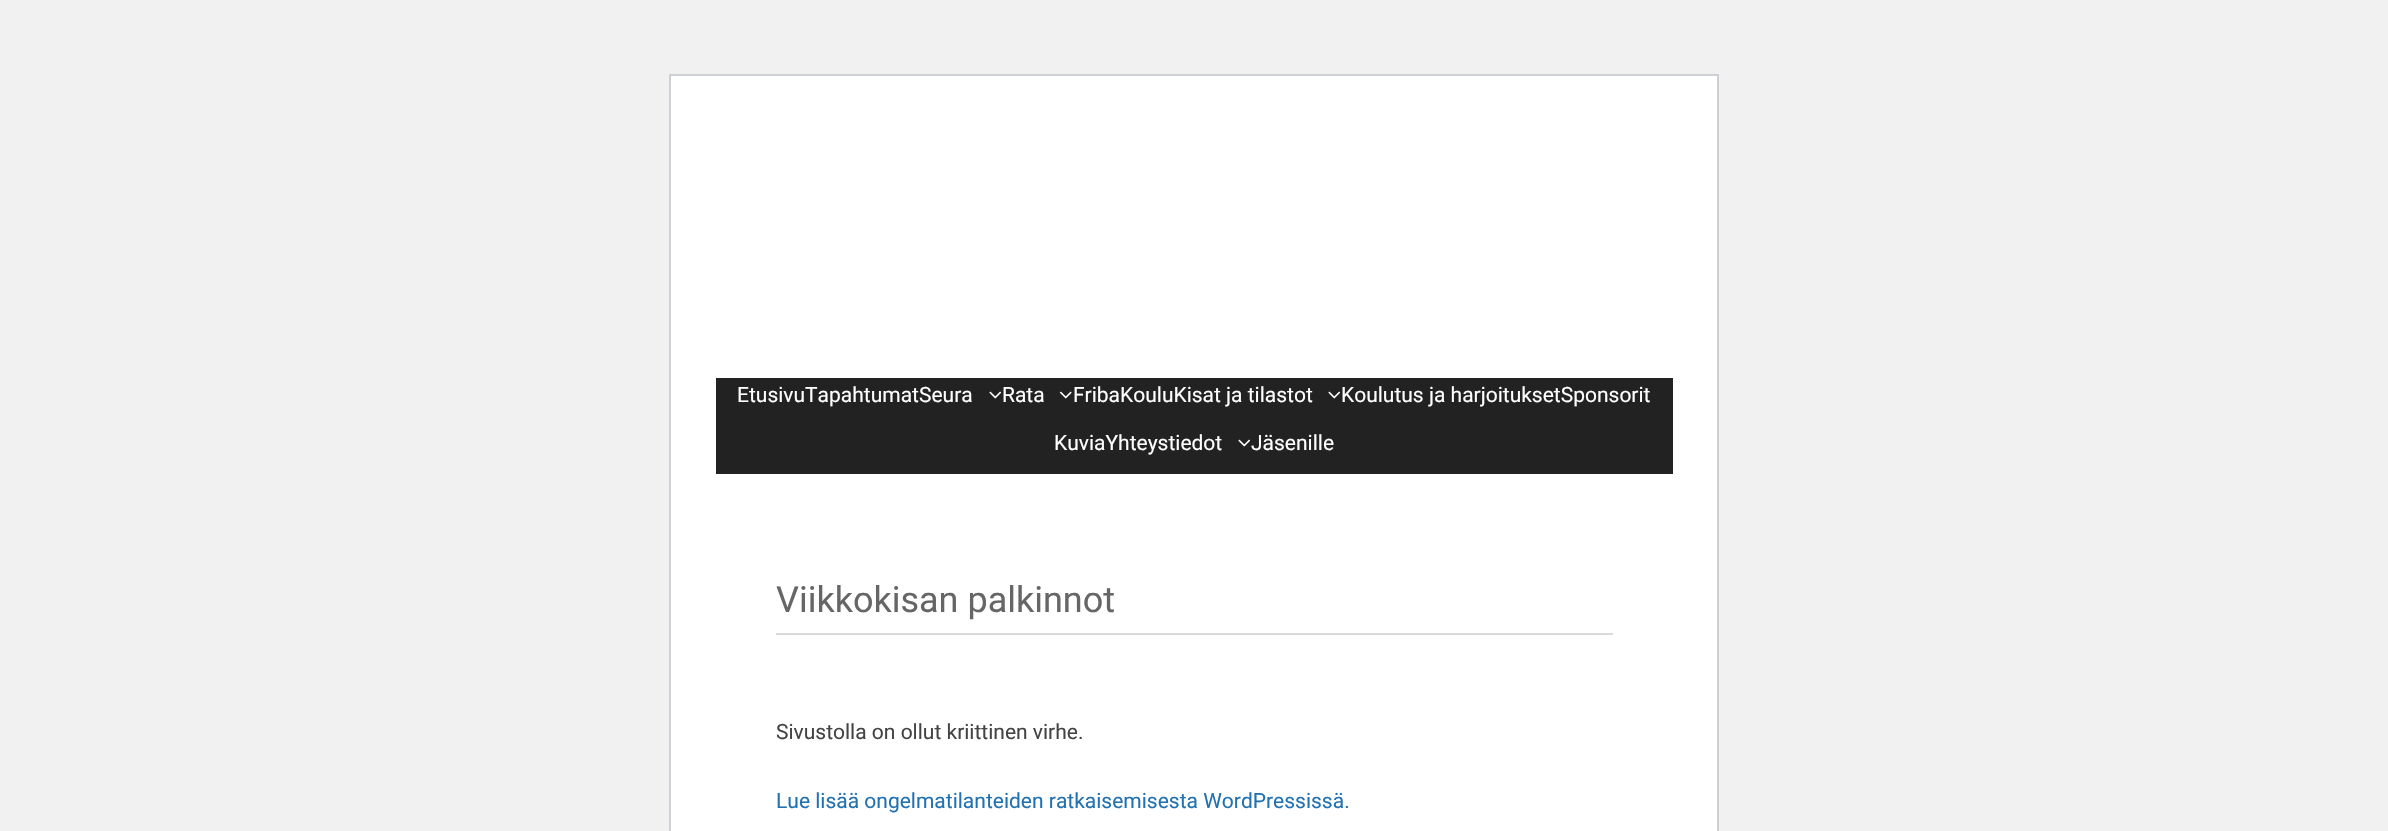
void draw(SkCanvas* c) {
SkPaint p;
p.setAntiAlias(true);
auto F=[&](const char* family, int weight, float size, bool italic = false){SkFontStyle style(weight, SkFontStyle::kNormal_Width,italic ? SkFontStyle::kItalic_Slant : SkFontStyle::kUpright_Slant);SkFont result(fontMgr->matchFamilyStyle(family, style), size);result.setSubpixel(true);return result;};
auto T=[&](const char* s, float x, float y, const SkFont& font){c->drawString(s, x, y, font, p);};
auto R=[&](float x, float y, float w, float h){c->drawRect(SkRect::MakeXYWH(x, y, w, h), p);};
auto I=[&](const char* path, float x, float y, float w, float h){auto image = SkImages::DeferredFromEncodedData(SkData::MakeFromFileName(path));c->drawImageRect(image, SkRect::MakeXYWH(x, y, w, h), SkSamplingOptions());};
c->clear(0xfff1f1f1);
p.setColor(0xffffffff);
c->drawRect(SkRect::MakeXYWH(670,75,1048,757),p);
p.setStroke(true);
p.setStrokeWidth(2);
p.setColor(0xffccd0d4);
c->drawRect(SkRect::MakeXYWH(670,75,1048,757),p);
p.setStroke(false);
p.setColor(0xff222222);
R(716,378,957,96);
auto f1 = F("Roboto",400,21);
p.setColor(0xffffffff);
T("EtusivuTapahtumatSeura",737,402,f1);
I("1.png",989,391,13,8);
T("Rata",1002,402,f1);
I("2.png",1059,391,13,8);
T("FribaKouluKisat ja tilastot",1073,402,f1);
I("1.png",1328,391,13,8);
T("Koulutus ja harjoituksetSponsorit",1341,402,f1);
T("KuviaYhteystiedot",1054,450,f1);
I("1.png",1238,439,13,8);
T("Jäsenille",1251,450,f1);
p.setColor(0xffdadada);
R(776,633,837,2);
auto f2 = F("Roboto",400,36);
p.setColor(0xff666666);
T("Viikkokisan palkinnot",776,612,f2);
p.setColor(0xff444444);
T("Sivustolla on ollut kriittinen virhe.",776,739,f1);
p.setColor(0xff2271b1);
T("Lue lisää ongelmatilanteiden ratkaisemisesta WordPressissä.",776,808,f1);
}
